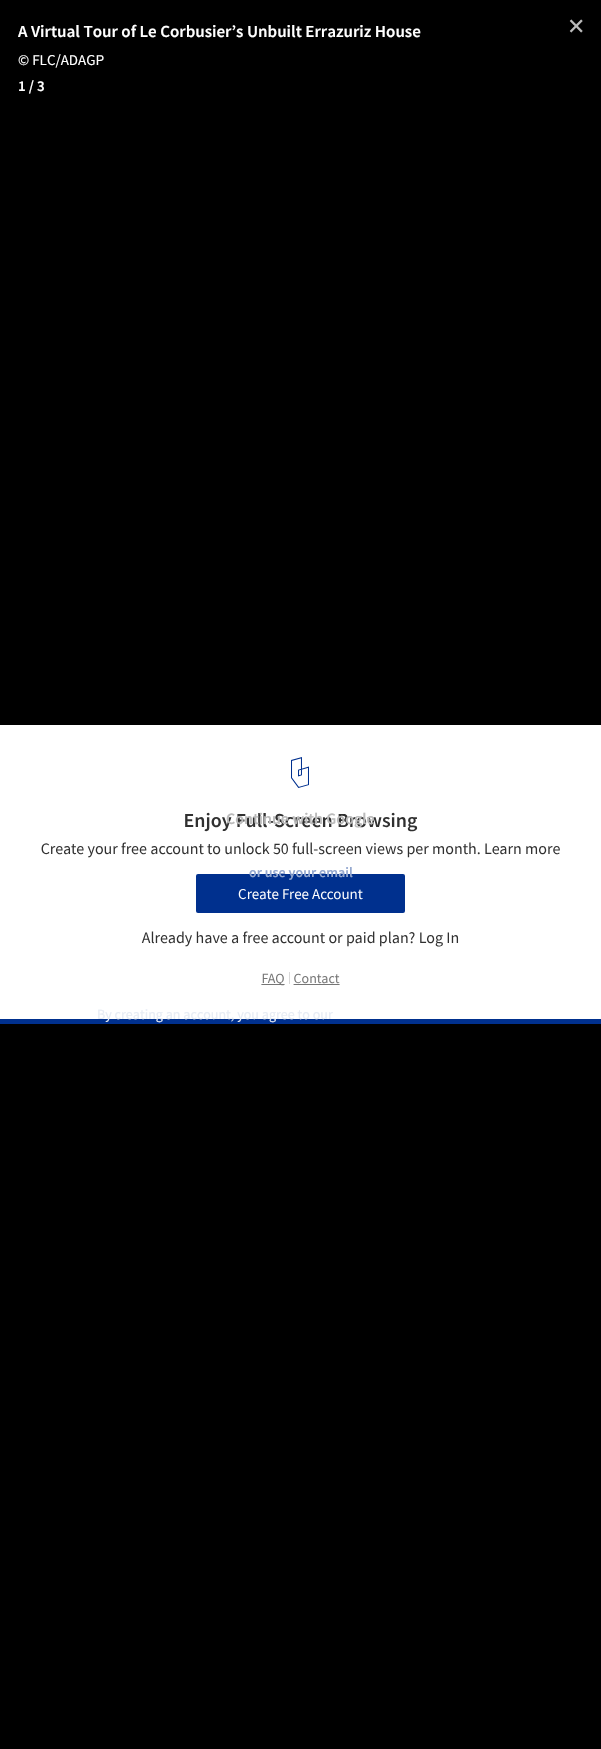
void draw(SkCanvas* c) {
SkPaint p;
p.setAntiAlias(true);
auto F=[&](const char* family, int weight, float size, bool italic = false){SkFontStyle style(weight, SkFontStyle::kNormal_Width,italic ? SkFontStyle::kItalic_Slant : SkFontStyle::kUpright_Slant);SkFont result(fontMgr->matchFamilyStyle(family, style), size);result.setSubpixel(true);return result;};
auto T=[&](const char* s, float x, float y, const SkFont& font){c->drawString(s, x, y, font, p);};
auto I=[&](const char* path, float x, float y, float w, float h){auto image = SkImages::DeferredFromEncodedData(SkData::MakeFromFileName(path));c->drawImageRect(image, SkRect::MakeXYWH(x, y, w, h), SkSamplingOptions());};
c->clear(0xff000000);
auto f1 = F("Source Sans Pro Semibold",600,17);
p.setColor(0xffffffff);
T("A Virtual Tour of Le Corbusier’s Unbuilt Errazuriz House",18,37,f1);
auto f2 = F("Source Sans Pro",400,15);
T("© FLC/ADAGP",18,65,f2);
auto f3 = F("Source Sans Pro Semibold",600,15);
T("1 / 3",18,91,f3);
auto f4 = F("DejaVu Sans",400,22);
p.setColor(0xffbbbbbb);
T("✕",567,34,f4);
I("1.png",0,725,601,299);
auto f5 = F("Source Sans Pro Semibold",600,16);
T("Continue with Google",226,824,f5);
auto f6 = F("Source Sans Pro Semibold",600,14);
p.setColor(0xff93a7cf);
T("or use your email",249,877,f6);
auto f7 = F("Source Sans Pro",400,14);
p.setColor(0xffe7ecf4);
T("By creating an account, you agree to our",97,1019,f7);
}
